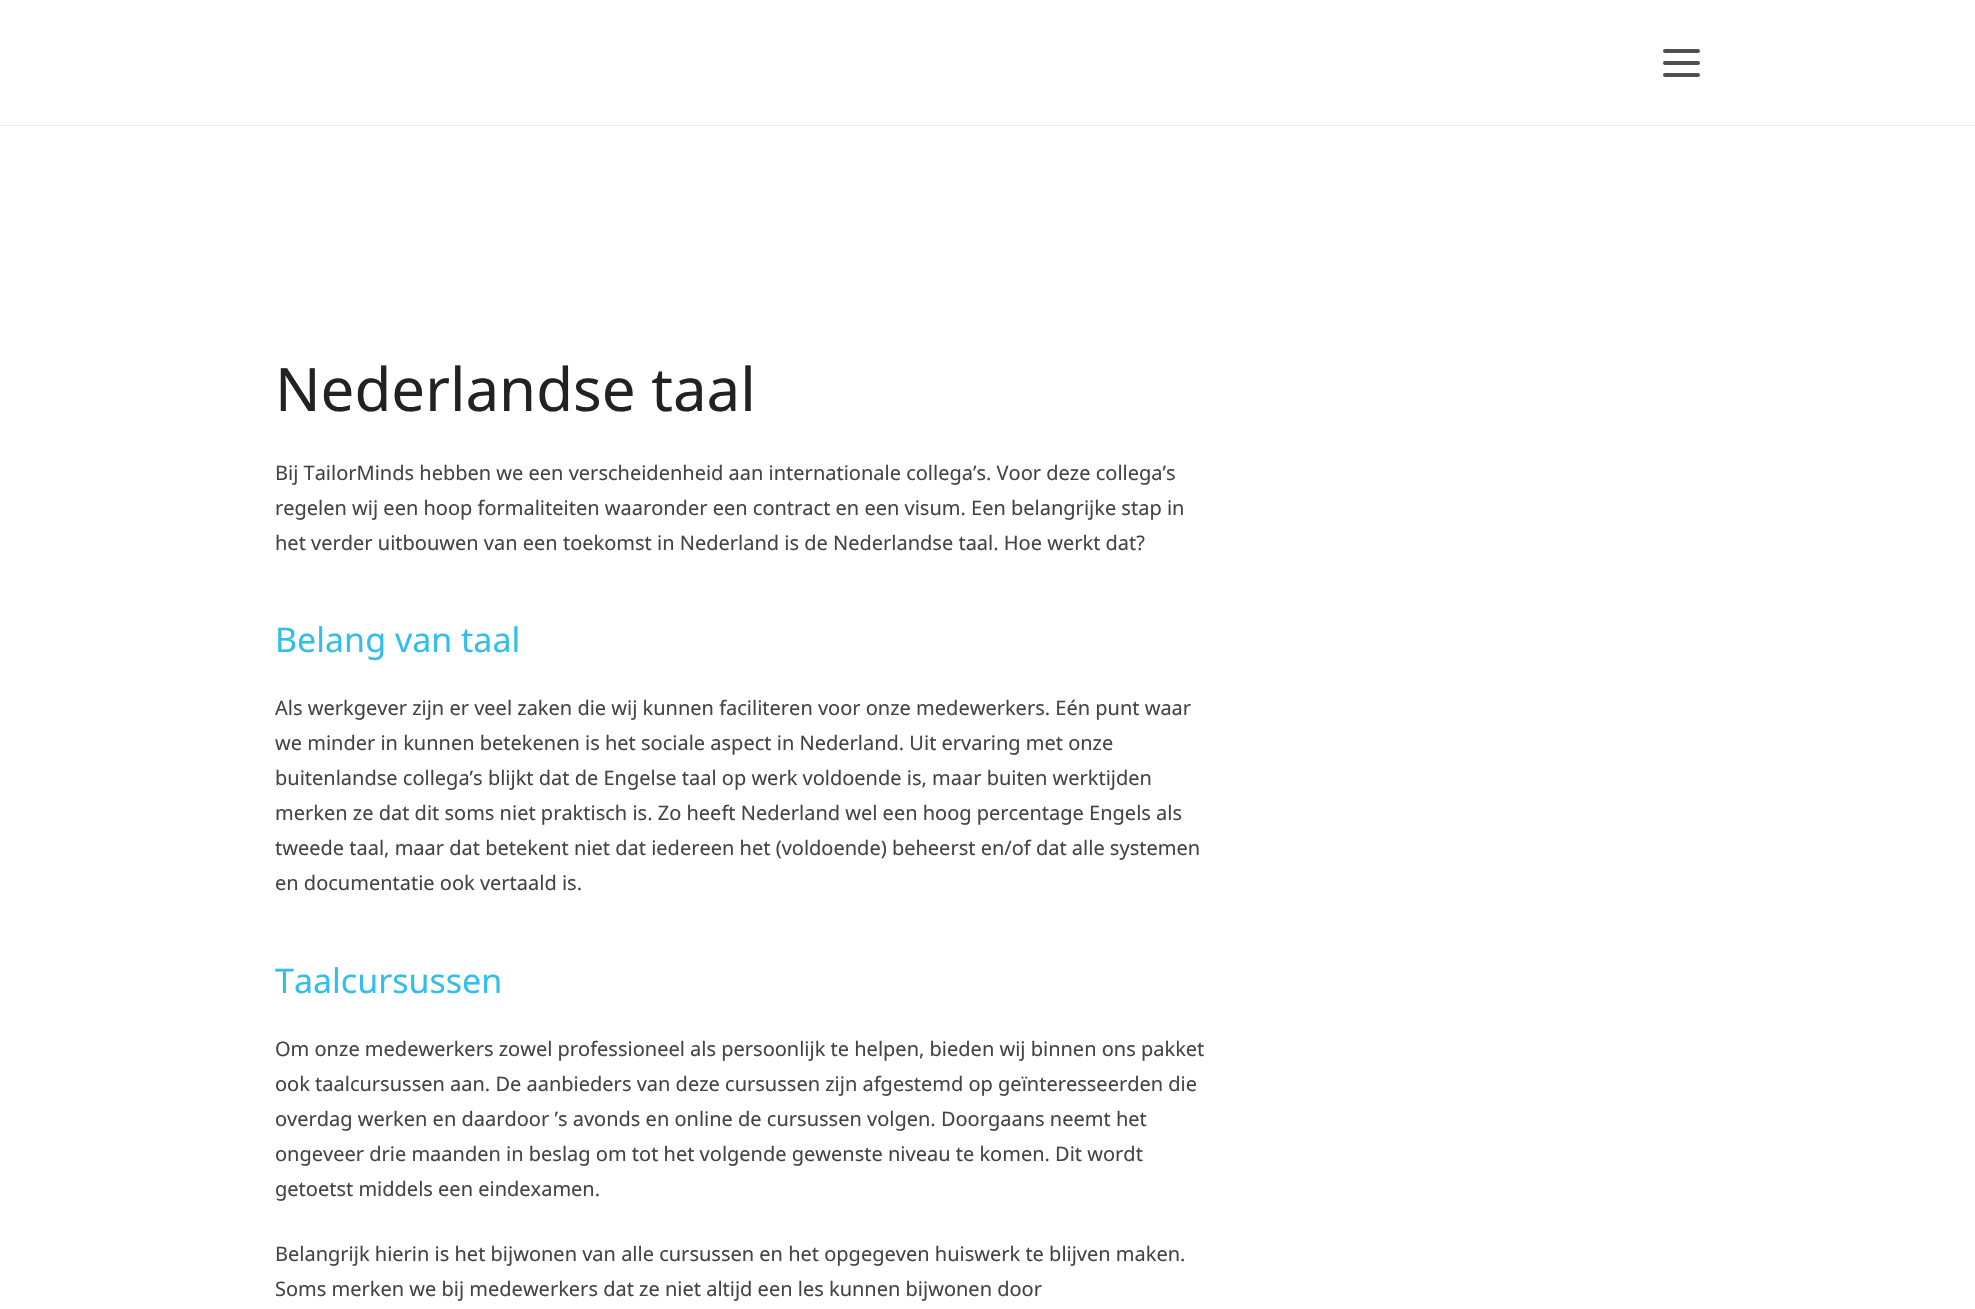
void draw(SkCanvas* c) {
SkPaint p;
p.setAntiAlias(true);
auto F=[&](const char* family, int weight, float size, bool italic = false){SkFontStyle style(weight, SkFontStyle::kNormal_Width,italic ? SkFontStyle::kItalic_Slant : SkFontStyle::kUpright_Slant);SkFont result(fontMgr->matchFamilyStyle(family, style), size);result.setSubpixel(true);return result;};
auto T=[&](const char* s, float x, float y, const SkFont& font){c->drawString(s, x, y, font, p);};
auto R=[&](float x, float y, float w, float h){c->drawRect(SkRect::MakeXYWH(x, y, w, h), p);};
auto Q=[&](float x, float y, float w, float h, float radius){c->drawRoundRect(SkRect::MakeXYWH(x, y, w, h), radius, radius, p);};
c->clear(0xffffffff);
p.setColor(0x14000000);
R(0,125,1975,1);
p.setColor(0xff4f4f4f);
Q(1663,61,37,4,2);
Q(1663,49,37,4,2);
Q(1663,73,37,4,2);
auto f1 = F("Noto Sans",400,60);
p.setColor(0xff222222);
T("Nederlandse taal",275,411,f1);
auto f2 = F("Noto Sans",400,20);
p.setColor(0xff444444);
T("Bij TailorMinds hebben we een verscheidenheid aan internationale collega’s. Voor deze collega’s",275,480,f2);
T("regelen wij een hoop formaliteiten waaronder een contract en een visum. Een belangrijke stap in",275,515,f2);
T("het verder uitbouwen van een toekomst in Nederland is de Nederlandse taal. Hoe werkt dat?",275,550,f2);
auto f3 = F("Noto Sans",400,34);
p.setColor(0xff32beeb);
T("Belang van taal",275,652,f3);
p.setColor(0xff444444);
T("Als werkgever zijn er veel zaken die wij kunnen faciliteren voor onze medewerkers. Eén punt waar",275,715,f2);
T("we minder in kunnen betekenen is het sociale aspect in Nederland. Uit ervaring met onze",275,750,f2);
T("buitenlandse collega’s blijkt dat de Engelse taal op werk voldoende is, maar buiten werktijden",275,785,f2);
T("merken ze dat dit soms niet praktisch is. Zo heeft Nederland wel een hoog percentage Engels als",275,820,f2);
T("tweede taal, maar dat betekent niet dat iedereen het (voldoende) beheerst en/of dat alle systemen",275,855,f2);
T("en documentatie ook vertaald is.",275,890,f2);
p.setColor(0xff32beeb);
T("Taalcursussen",275,993,f3);
p.setColor(0xff444444);
T("Om onze medewerkers zowel professioneel als persoonlijk te helpen, bieden wij binnen ons pakket",275,1056,f2);
T("ook taalcursussen aan. De aanbieders van deze cursussen zijn afgestemd op geïnteresseerden die",275,1091,f2);
T("overdag werken en daardoor ’s avonds en online de cursussen volgen. Doorgaans neemt het",275,1126,f2);
T("ongeveer drie maanden in beslag om tot het volgende gewenste niveau te komen. Dit wordt",275,1161,f2);
T("getoetst middels een eindexamen.",275,1196,f2);
T("Belangrijk hierin is het bijwonen van alle cursussen en het opgegeven huiswerk te blijven maken.",275,1261,f2);
T("Soms merken we bij medewerkers dat ze niet altijd een les kunnen bijwonen door",275,1296,f2);
}
